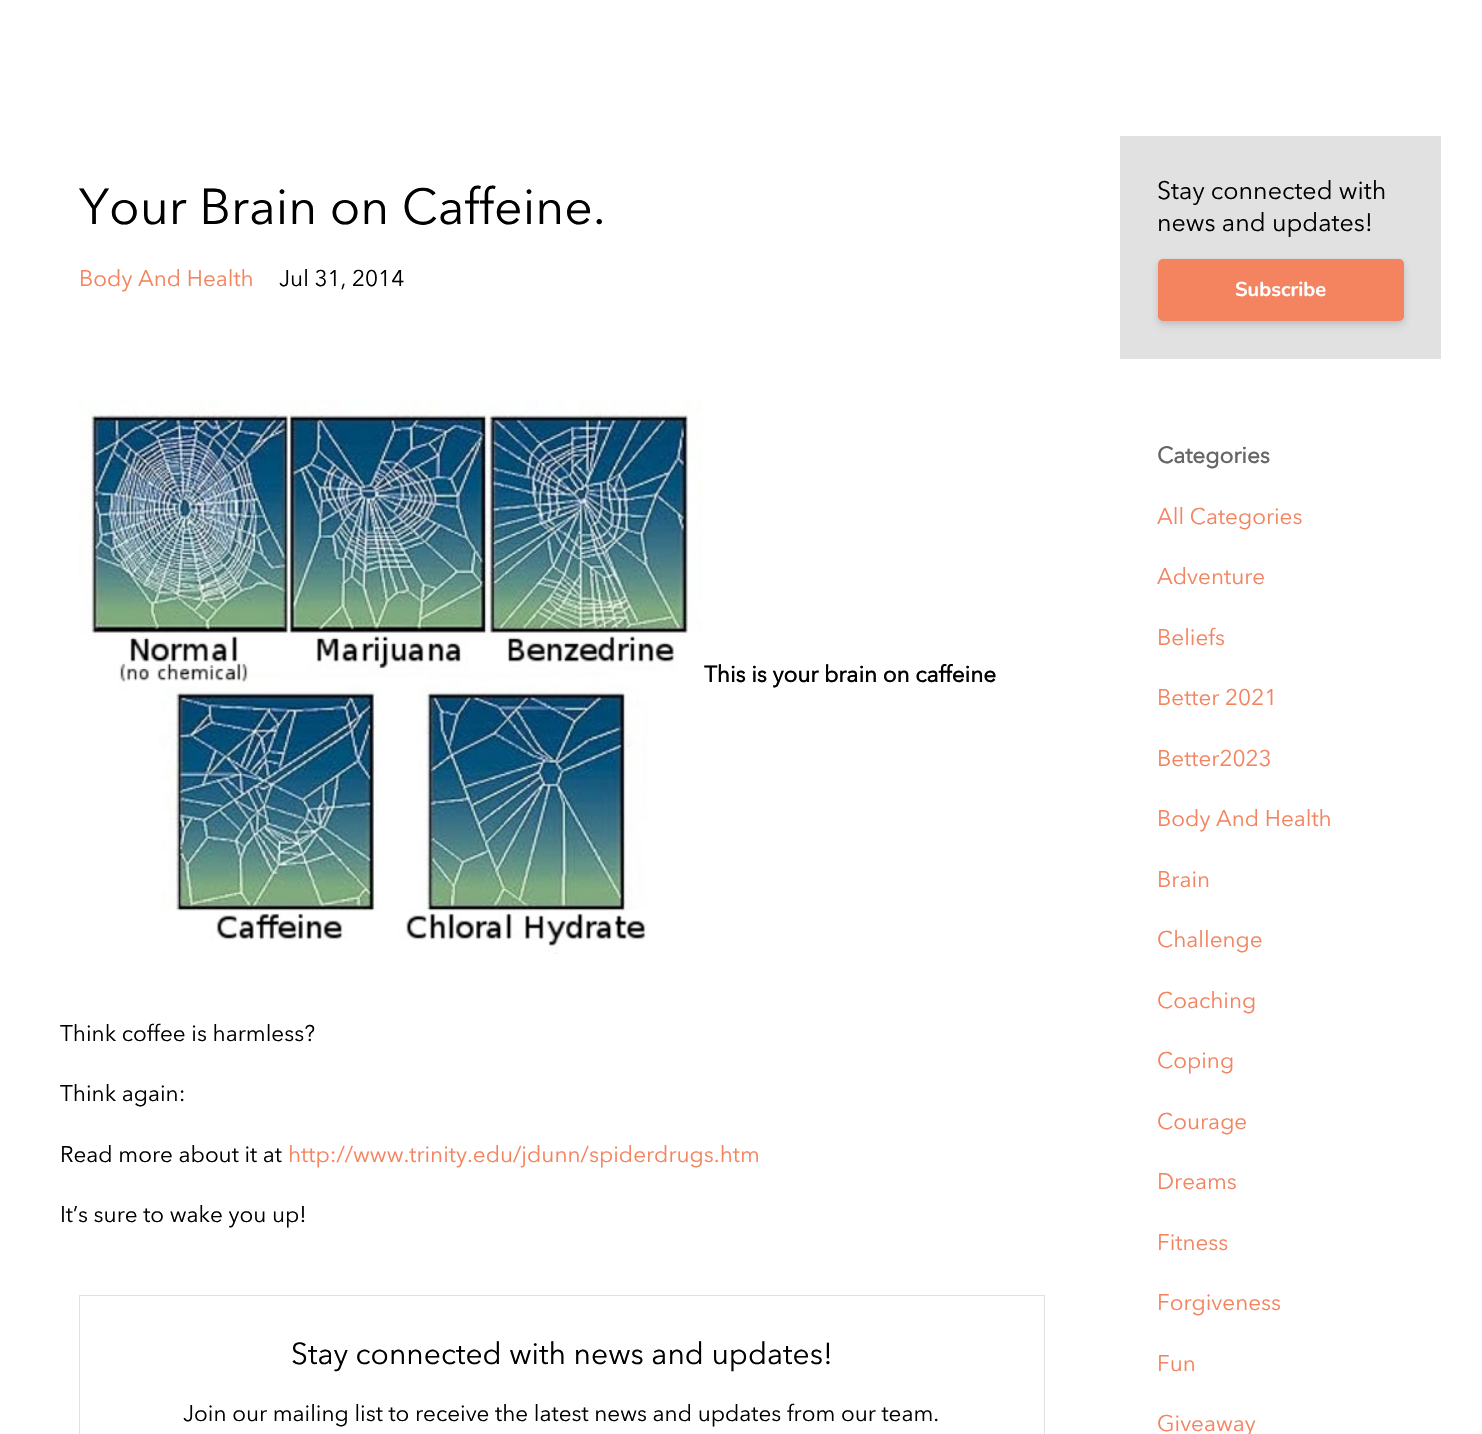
void draw(SkCanvas* c) {
SkPaint p;
p.setAntiAlias(true);
auto F=[&](const char* family, int weight, float size, bool italic = false){SkFontStyle style(weight, SkFontStyle::kNormal_Width,italic ? SkFontStyle::kItalic_Slant : SkFontStyle::kUpright_Slant);SkFont result(fontMgr->matchFamilyStyle(family, style), size);result.setSubpixel(true);return result;};
auto T=[&](const char* s, float x, float y, const SkFont& font){c->drawString(s, x, y, font, p);};
auto R=[&](float x, float y, float w, float h){c->drawRect(SkRect::MakeXYWH(x, y, w, h), p);};
auto I=[&](const char* path, float x, float y, float w, float h){auto image = SkImages::DeferredFromEncodedData(SkData::MakeFromFileName(path));c->drawImageRect(image, SkRect::MakeXYWH(x, y, w, h), SkSamplingOptions());};
c->clear(0xffffffff);
auto f1 = F("Avenir Next",400,50);
p.setColor(0xff000000);
T("Your Brain on Caffeine.",79,224,f1);
auto f2 = F("Avenir Next",400,22.5);
p.setColor(0xfff48460);
T("Body And Health",79,286,f2);
p.setColor(0xff000000);
T("Jul 31, 2014",279,286,f2);
I("1.png",79,400,624,554);
auto f3 = F("Avenir Next",700,22.5);
T("This is your brain on caffeine",704,682,f3);
T("Think coffee is harmless?",60,1041,f2);
T("Think again:",60,1101,f2);
T("Read more about it at",60,1162,f2);
p.setColor(0xfff48460);
T("http://www.trinity.edu/jdunn/spiderdrugs.htm",288,1162,f2);
p.setColor(0xff000000);
T("It’s sure to wake you up!",60,1222,f2);
p.setStroke(true);
p.setStrokeWidth(1);
p.setColor(0xffe1e1e1);
c->drawRect(SkRect::MakeXYWH(79.5,1295.5,965,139),p);
auto f4 = F("Avenir Next",400,30);
p.setStroke(false);
p.setColor(0xff000000);
T("Stay connected with news and updates!",291,1364,f4);
T("Join our mailing list to receive the latest news and updates from our team.",183,1421,f2);
p.setColor(0xffe1e1e1);
R(1120,136,321,223);
auto f5 = F("Avenir Next",400,25);
p.setColor(0xff000000);
T("Stay connected with",1157,199,f5);
T("news and updates!",1157,231,f5);
p.setColor(0x14000000);
p.setMaskFilter(SkMaskFilter::MakeBlur(kNormal_SkBlurStyle, 2));
c->drawRoundRect(SkRect::MakeXYWH(1158,260,246,63),5,5,p);
p.setMaskFilter(nullptr);
p.setColor(0x1c32325d);
p.setMaskFilter(SkMaskFilter::MakeBlur(kNormal_SkBlurStyle, 4));
c->drawRoundRect(SkRect::MakeXYWH(1158,264,246,62),5,5,p);
p.setMaskFilter(nullptr);
p.setColor(0xfff48460);
c->drawRoundRect(SkRect::MakeXYWH(1159.5,260.5,243,59),3.5,3.5,p);
p.setStroke(true);
p.setStrokeWidth(3);
c->drawRoundRect(SkRect::MakeXYWH(1159.5,260.5,243,59),3.5,3.5,p);
auto f6 = F("Nunito",700,20);
p.setStroke(false);
p.setColor(0xffffffff);
T("Subscribe",1235,296,f6);
p.setColor(0xff666666);
T("Categories",1157,463,f3);
p.setColor(0xfff48460);
T("All Categories",1157,524,f2);
T("Adventure",1157,584,f2);
T("Beliefs",1157,645,f2);
T("Better 2021",1157,705,f2);
T("Better2023",1157,766,f2);
T("Body And Health",1157,826,f2);
T("Brain",1157,887,f2);
T("Challenge",1157,947,f2);
T("Coaching",1157,1008,f2);
T("Coping",1157,1068,f2);
T("Courage",1157,1129,f2);
T("Dreams",1157,1189,f2);
T("Fitness",1157,1250,f2);
T("Forgiveness",1157,1310,f2);
T("Fun",1157,1371,f2);
T("Giveaway",1157,1431,f2);
}
